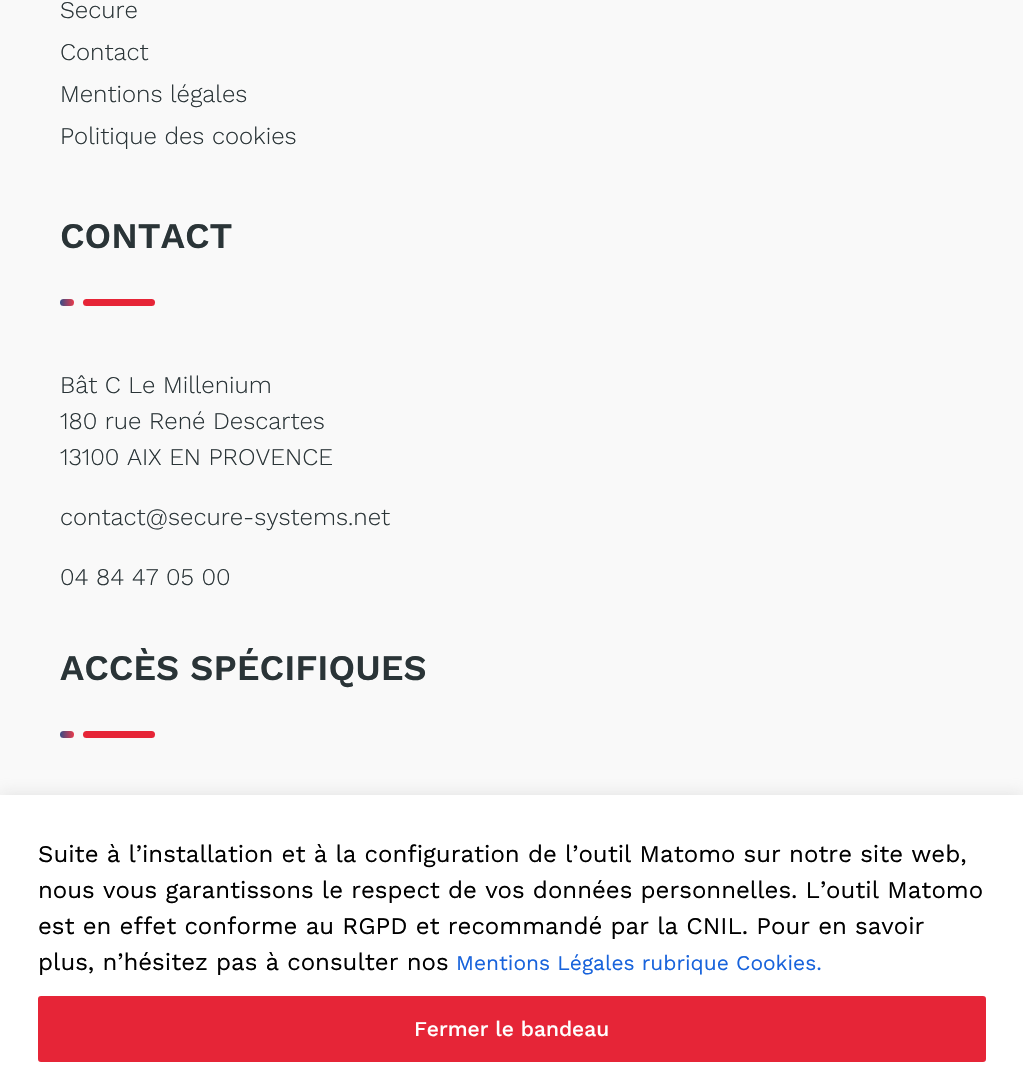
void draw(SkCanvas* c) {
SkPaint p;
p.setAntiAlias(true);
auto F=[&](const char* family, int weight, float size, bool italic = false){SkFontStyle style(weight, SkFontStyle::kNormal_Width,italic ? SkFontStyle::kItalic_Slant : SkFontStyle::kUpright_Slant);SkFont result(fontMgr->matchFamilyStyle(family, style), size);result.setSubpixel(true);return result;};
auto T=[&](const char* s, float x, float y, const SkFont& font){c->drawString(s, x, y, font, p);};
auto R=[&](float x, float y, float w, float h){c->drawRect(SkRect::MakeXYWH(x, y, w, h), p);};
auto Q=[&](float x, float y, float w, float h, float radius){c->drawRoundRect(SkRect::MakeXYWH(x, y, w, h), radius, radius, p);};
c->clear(0xfff9f9f9);
auto f1 = F("Work Sans",300,24);
p.setColor(0xff2a3437);
T("Secure",60,18,f1);
T("Contact",60,60,f1);
T("Mentions légales",60,102,f1);
T("Politique des cookies",60,144,f1);
auto f2 = F("Work Sans",600,36);
T("CONTACT",60,248,f2);
{
const SkColor colors[] = {0xff374d87,0xffe83a4a};
const float stops[] = {0,1};
const SkPoint ends[] = {{60,302}, {74,302}};
p.setShader(SkGradientShader::MakeLinear(ends, colors, stops, 2, SkTileMode::kClamp));
p.setAlpha(255);
}
Q(60,299,14,7,3.5);
p.setShader(nullptr);
p.setColor(0xffe62537);
Q(83,299,72,7,3.5);
p.setColor(0xff2a3437);
T("Bât C Le Millenium",60,393,f1);
T("180 rue René Descartes",60,429,f1);
T("13100 AIX EN PROVENCE",60,465,f1);
T("contact@secure-systems.net",60,525,f1);
T("04 84 47 05 00",60,585,f1);
T("ACCÈS SPÉCIFIQUES",60,680,f2);
{
const SkColor colors[] = {0xff374d87,0xffe83a4a};
const float stops[] = {0,1};
const SkPoint ends[] = {{60,734}, {74,734}};
p.setShader(SkGradientShader::MakeLinear(ends, colors, stops, 2, SkTileMode::kClamp));
p.setAlpha(255);
}
Q(60,731,14,7,3.5);
p.setShader(nullptr);
p.setColor(0xffe62537);
Q(83,731,72,7,3.5);
p.setColor(0x4dacabab);
p.setMaskFilter(SkMaskFilter::MakeBlur(kNormal_SkBlurStyle, 7.5));
c->drawRect(SkRect::MakeXYWH(0,794,1023,292),p);
p.setMaskFilter(nullptr);
p.setColor(0xffffffff);
R(0,795,1023,292);
auto f3 = F("Work Sans",400,24);
p.setColor(0xff000000);
T("Suite à l’installation et à la configuration de l’outil Matomo sur notre site web,",38,862,f3);
T("nous vous garantissons le respect de vos données personnelles. L’outil Matomo",38,898,f3);
T("est en effet conforme au RGPD et recommandé par la CNIL. Pour en savoir",38,934,f3);
T("plus, n’hésitez pas à consulter nos",38,970,f3);
auto f4 = F("Work Sans",400,21);
p.setColor(0xff1863dc);
T("Mentions Légales rubrique Cookies.",456,970,f4);
p.setColor(0xffe62537);
c->drawRoundRect(SkRect::MakeXYWH(39.5,997.5,945,63),1.5,1.5,p);
p.setStroke(true);
p.setStrokeWidth(3);
c->drawRoundRect(SkRect::MakeXYWH(39.5,997.5,945,63),1.5,1.5,p);
auto f5 = F("Work Sans",500,21);
p.setStroke(false);
p.setColor(0xffffffff);
T("Fermer le bandeau",414,1036,f5);
}
